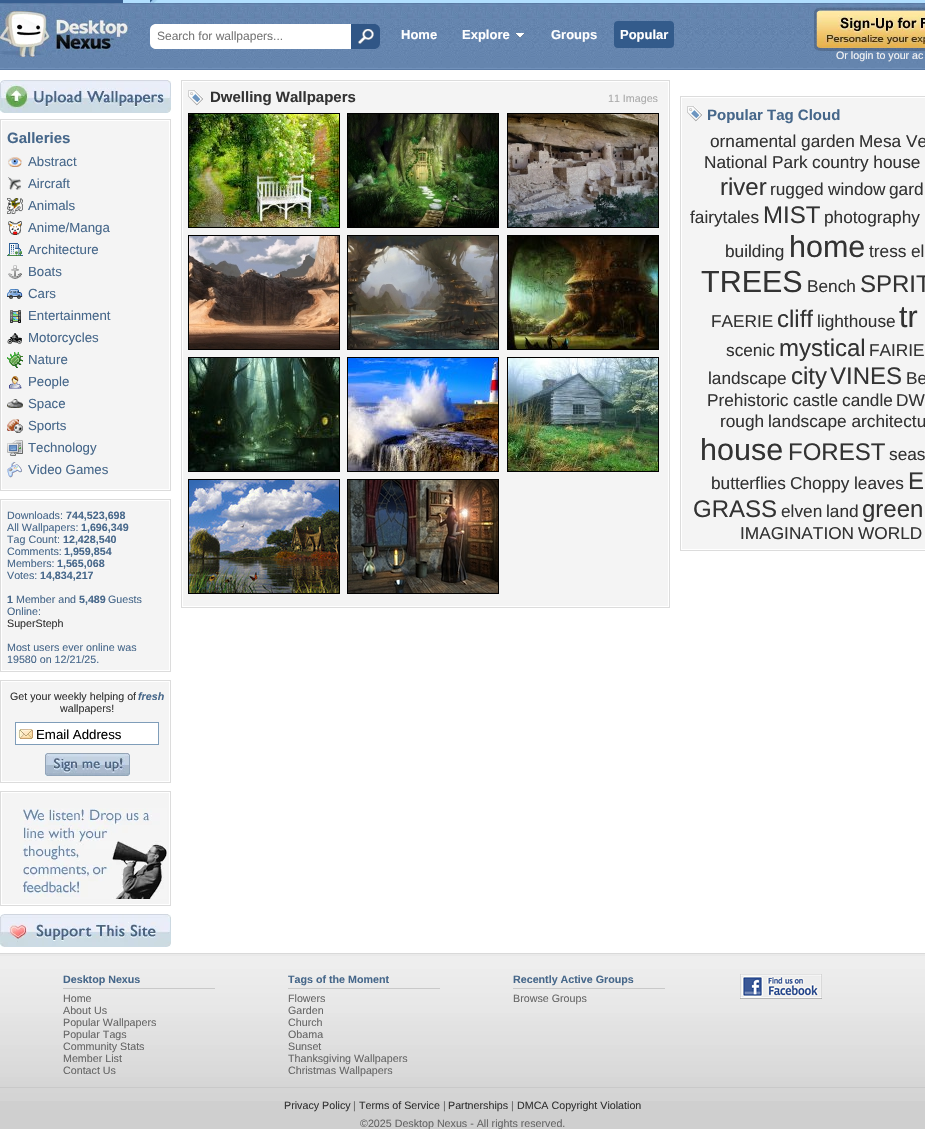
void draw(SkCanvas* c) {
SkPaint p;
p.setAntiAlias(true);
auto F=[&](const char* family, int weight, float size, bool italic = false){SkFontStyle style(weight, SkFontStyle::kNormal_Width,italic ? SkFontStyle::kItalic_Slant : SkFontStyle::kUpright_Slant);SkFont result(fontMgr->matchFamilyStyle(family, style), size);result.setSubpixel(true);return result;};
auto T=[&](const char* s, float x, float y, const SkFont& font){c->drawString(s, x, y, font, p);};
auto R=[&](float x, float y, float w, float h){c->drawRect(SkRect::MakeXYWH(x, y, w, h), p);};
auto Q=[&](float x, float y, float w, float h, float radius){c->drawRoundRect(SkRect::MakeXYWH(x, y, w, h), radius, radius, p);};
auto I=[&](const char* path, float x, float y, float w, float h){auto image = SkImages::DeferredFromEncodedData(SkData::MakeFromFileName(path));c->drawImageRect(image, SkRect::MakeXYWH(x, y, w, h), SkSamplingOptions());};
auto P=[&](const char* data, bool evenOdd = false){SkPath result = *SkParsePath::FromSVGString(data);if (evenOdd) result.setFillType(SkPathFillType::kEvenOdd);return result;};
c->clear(0xffffffff);
p.setColor(0xffb1dfff);
R(123,0,802,3);
p.setColor(0xff375e90);
R(0,0,123,3);
I("1.png",150,0,8,3);
I("2.png",0,3,925,67);
I("3.png",0,11,128,46);
p.setColor(0xffffffff);
c->drawPath(P("M156 24h211v25h-211c-3.5 0-6-2.5-6-6v-13c0-3.5 2.5-6 6-6z"),p);
auto f1 = F("Liberation Sans",400,12);
p.setColor(0xff777777);
T("Search for wallpapers...",157,40,f1);
p.setColor(0xff305686);
c->drawPath(P("M351 24h23c3.5 0 6 2.5 6 6v13c0 3.5-2.5 6-6 6h-23z"),p);
I("4.png",358,29,16,15);
auto f2 = F("Liberation Sans",700,13);
p.setColor(0xffffffff);
T("Home",401,39,f2);
T("Explore",462,39,f2);
I("5.png",515,33,10,5);
T("Groups",551,39,f2);
p.setColor(0xff335b8b);
Q(614,21,60,27,4);
p.setColor(0xffffffff);
T("Popular",620,39,f2);
I("6.png",814,7,111,44);
auto f3 = F("Liberation Sans",400,10.7);
p.setColor(0xfff4f4f4);
T("Or login to your ac",836,59,f3);
p.setStroke(true);
p.setStrokeWidth(1);
p.setColor(0xffdcdcdc);
c->drawRect(SkRect::MakeXYWH(181.5,80.5,488,527),p);
p.setStroke(false);
p.setColor(0xfff4f4f4);
R(183,82,485,524);
I("7.png",188,90,15,16);
auto f4 = F("Liberation Sans",700,15);
p.setColor(0xff333333);
T("Dwelling Wallpapers",210,102,f4);
p.setColor(0xffaaaaaa);
T("11 Images",608,102,f3);
p.setStroke(true);
p.setColor(0xff000000);
c->drawRect(SkRect::MakeXYWH(188.5,113.5,151,114),p);
I("8.png",189,114,150,113);
c->drawRect(SkRect::MakeXYWH(347.5,113.5,151,114),p);
I("9.png",348,114,150,113);
c->drawRect(SkRect::MakeXYWH(507.5,113.5,151,114),p);
I("10.png",508,114,150,113);
c->drawRect(SkRect::MakeXYWH(188.5,235.5,151,114),p);
I("11.png",189,236,150,113);
c->drawRect(SkRect::MakeXYWH(347.5,235.5,151,114),p);
I("12.png",348,236,150,113);
c->drawRect(SkRect::MakeXYWH(507.5,235.5,151,114),p);
I("13.png",508,236,150,113);
c->drawRect(SkRect::MakeXYWH(188.5,357.5,151,114),p);
I("14.png",189,358,150,113);
c->drawRect(SkRect::MakeXYWH(347.5,357.5,151,114),p);
I("15.png",348,358,150,113);
c->drawRect(SkRect::MakeXYWH(507.5,357.5,151,114),p);
I("16.png",508,358,150,113);
c->drawRect(SkRect::MakeXYWH(188.5,479.5,151,114),p);
I("17.png",189,480,150,113);
c->drawRect(SkRect::MakeXYWH(347.5,479.5,151,114),p);
I("18.png",348,480,150,113);
I("19.png",0,80,171,33);
p.setColor(0xffdcdcdc);
c->drawRect(SkRect::MakeXYWH(.5,119.5,170,371),p);
p.setStroke(false);
p.setColor(0xfff4f4f4);
R(2,121,167,368);
p.setColor(0xff46678a);
T("Galleries",7,143,f4);
I("20.png",8,157,14,10);
auto f5 = F("Liberation Sans",400,13.25);
T("Abstract",28,166,f5);
I("21.png",8,177,13,13);
T("Aircraft",28,188,f5);
I("22.png",7,198,16,16);
T("Animals",28,210,f5);
I("23.png",8,221,14,14);
T("Anime/Manga",28,232,f5);
I("24.png",7,243,16,13);
T("Architecture",28,254,f5);
I("25.png",8,265,14,14);
T("Boats",28,276,f5);
I("26.png",7,289,16,10);
T("Cars",28,298,f5);
I("27.png",10,310,11,13);
T("Entertainment",28,320,f5);
I("28.png",7,332,16,12);
T("Motorcycles",28,342,f5);
I("29.png",7,352,16,16);
T("Nature",28,364,f5);
I("30.png",9,376,13,13);
T("People",28,386,f5);
I("31.png",7,399,16,9);
T("Space",28,408,f5);
I("32.png",7,419,16,14);
T("Sports",28,430,f5);
I("33.png",7,440,16,16);
T("Technology",28,452,f5);
I("34.png",7,462,15,16);
T("Video Games",28,474,f5);
p.setStroke(true);
p.setColor(0xffdcdcdc);
c->drawRect(SkRect::MakeXYWH(.5,499.5,170,172),p);
p.setStroke(false);
p.setColor(0xfff4f4f4);
R(2,501,167,169);
p.setColor(0xff46678a);
T("Downloads:",7,519,f3);
auto f6 = F("Liberation Sans",700,10.7);
T("744,523,698",66,519,f6);
T("All Wallpapers:",7,531,f3);
T("1,696,349",81,531,f6);
T("Tag Count:",7,543,f3);
T("12,428,540",63,543,f6);
T("Comments:",7,555,f3);
T("1,959,854",64,555,f6);
T("Members:",7,567,f3);
T("1,565,068",57,567,f6);
T("Votes:",7,579,f3);
T("14,834,217",40,579,f6);
T("1",7,603,f6);
T("Member and",16,603,f3);
T("5,489",79,603,f6);
T("Guests",108,603,f3);
T("Online:",7,615,f3);
p.setColor(0xff333333);
T("SuperSteph",7,627,f3);
p.setColor(0xff46678a);
T("Most users ever online was",7,651,f3);
T("19580 on 12/21/25.",7,663,f3);
p.setStroke(true);
p.setColor(0xffdcdcdc);
c->drawRect(SkRect::MakeXYWH(.5,680.5,170,102),p);
p.setStroke(false);
p.setColor(0xfff4f4f4);
R(2,682,167,99);
p.setColor(0xff333333);
T("Get your weekly helping of",10,700,f3);
auto f7 = F("Liberation Sans",700,10.7,true);
p.setColor(0xff46678a);
T("fresh",138,700,f7);
p.setColor(0xff333333);
T("wallpapers!",60,712,f3);
p.setColor(0xffffffff);
R(16,723,142,21);
I("35.png",16,729,17,10);
p.setStroke(true);
p.setColor(0xff7f9db9);
c->drawRect(SkRect::MakeXYWH(15.5,722.5,143,22),p);
p.setStroke(false);
p.setColor(0xff000000);
T("Email Address",36,739,f5);
I("36.png",45,753,85,23);
p.setStroke(true);
p.setColor(0xffdcdcdc);
c->drawRect(SkRect::MakeXYWH(.5,791.5,170,114),p);
p.setStroke(false);
p.setColor(0xfff4f4f4);
R(2,793,167,111);
I("37.png",20,808,147,91);
I("38.png",0,914,171,33);
p.setStroke(true);
p.setColor(0xffdcdcdc);
c->drawRect(SkRect::MakeXYWH(680.5,96.5,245,454),p);
p.setStroke(false);
p.setColor(0xfff4f4f4);
R(682,98,243,451);
I("7.png",687,106,15,16);
p.setColor(0xff46678a);
T("Popular Tag Cloud",707,120,f4);
auto f8 = F("Liberation Sans",400,17.25);
p.setColor(0xff333333);
T("ornamental garden",710,147,f8);
T("Mesa Ve",859,147,f8);
T("National Park",704,168,f8);
T("country house",812,168,f8);
auto f9 = F("Liberation Sans",400,24);
T("river",720,195,f9);
T("rugged",770,195,f8);
T("window",828,195,f8);
T("gard",889,195,f8);
T("fairytales",690,223,f8);
T("MIST",763,223,f9);
T("photography",824,223,f8);
T("building",725,257,f8);
auto f10 = F("Liberation Sans",400,30.5);
T("home",789,257,f10);
T("tress",869,257,f8);
T("el",911,257,f8);
T("TREES",701,292,f10);
T("Bench",807,292,f8);
T("SPRIT",860,292,f9);
T("FAERIE",711,327,f8);
T("cliff",777,327,f9);
T("lighthouse",817,327,f8);
T("tr",899,327,f10);
T("scenic",726,356,f8);
T("mystical",779,356,f9);
T("FAIRIE",869,356,f8);
T("landscape",708,384,f8);
T("city",791,384,f9);
T("VINES",830,384,f9);
T("Be",906,384,f8);
T("Prehistoric",707,406,f8);
T("castle",793,406,f8);
T("candle",842,406,f8);
T("DW",896,406,f8);
T("rough",720,427,f8);
T("landscape architectu",768,427,f8);
T("house",700,460,f10);
T("FOREST",788,460,f9);
T("seas",889,460,f8);
T("butterflies",711,489,f8);
T("Choppy",790,489,f8);
T("leaves",854,489,f8);
T("E",908,489,f9);
T("GRASS",693,517,f9);
T("elven",781,517,f8);
T("land",826,517,f8);
T("green",862,517,f9);
T("IMAGINATION",740,539,f8);
T("WORLD",858,539,f8);
p.setColor(0xffcfcfcf);
R(0,1101,925,28);
I("39.png",0,953,925,148);
p.setColor(0xff46678a);
T("Desktop Nexus",63,983,f6);
p.setColor(0xffc9c9c9);
R(63,988,152,1);
p.setColor(0xff666666);
T("Home",63,1002,f3);
T("About Us",63,1014,f3);
T("Popular Wallpapers",63,1026,f3);
T("Popular Tags",63,1038,f3);
T("Community Stats",63,1050,f3);
T("Member List",63,1062,f3);
T("Contact Us",63,1074,f3);
p.setColor(0xff46678a);
T("Tags of the Moment",288,983,f6);
p.setColor(0xffc9c9c9);
R(288,988,152,1);
p.setColor(0xff666666);
T("Flowers",288,1002,f3);
T("Garden",288,1014,f3);
T("Church",288,1026,f3);
T("Obama",288,1038,f3);
T("Sunset",288,1050,f3);
T("Thanksgiving Wallpapers",288,1062,f3);
T("Christmas Wallpapers",288,1074,f3);
p.setColor(0xff46678a);
T("Recently Active Groups",513,983,f6);
p.setColor(0xffc9c9c9);
R(513,988,152,1);
p.setColor(0xff666666);
T("Browse Groups",513,1002,f3);
I("40.png",740,974,82,25);
p.setColor(0xffc9c9c9);
R(0,1087,925,1);
p.setColor(0xff333333);
T("Privacy Policy",284,1109,f3);
p.setColor(0xff666666);
T("|",353,1109,f3);
p.setColor(0xff333333);
T("Terms of Service",359,1109,f3);
p.setColor(0xff666666);
T("|",443,1109,f3);
p.setColor(0xff333333);
T("Partnerships",448,1109,f3);
p.setColor(0xff666666);
T("|",511,1109,f3);
p.setColor(0xff333333);
T("DMCA Copyright Violation",517,1109,f3);
p.setColor(0xff666666);
T("©2025 Desktop Nexus - All rights reserved.",360,1127,f3);
}
